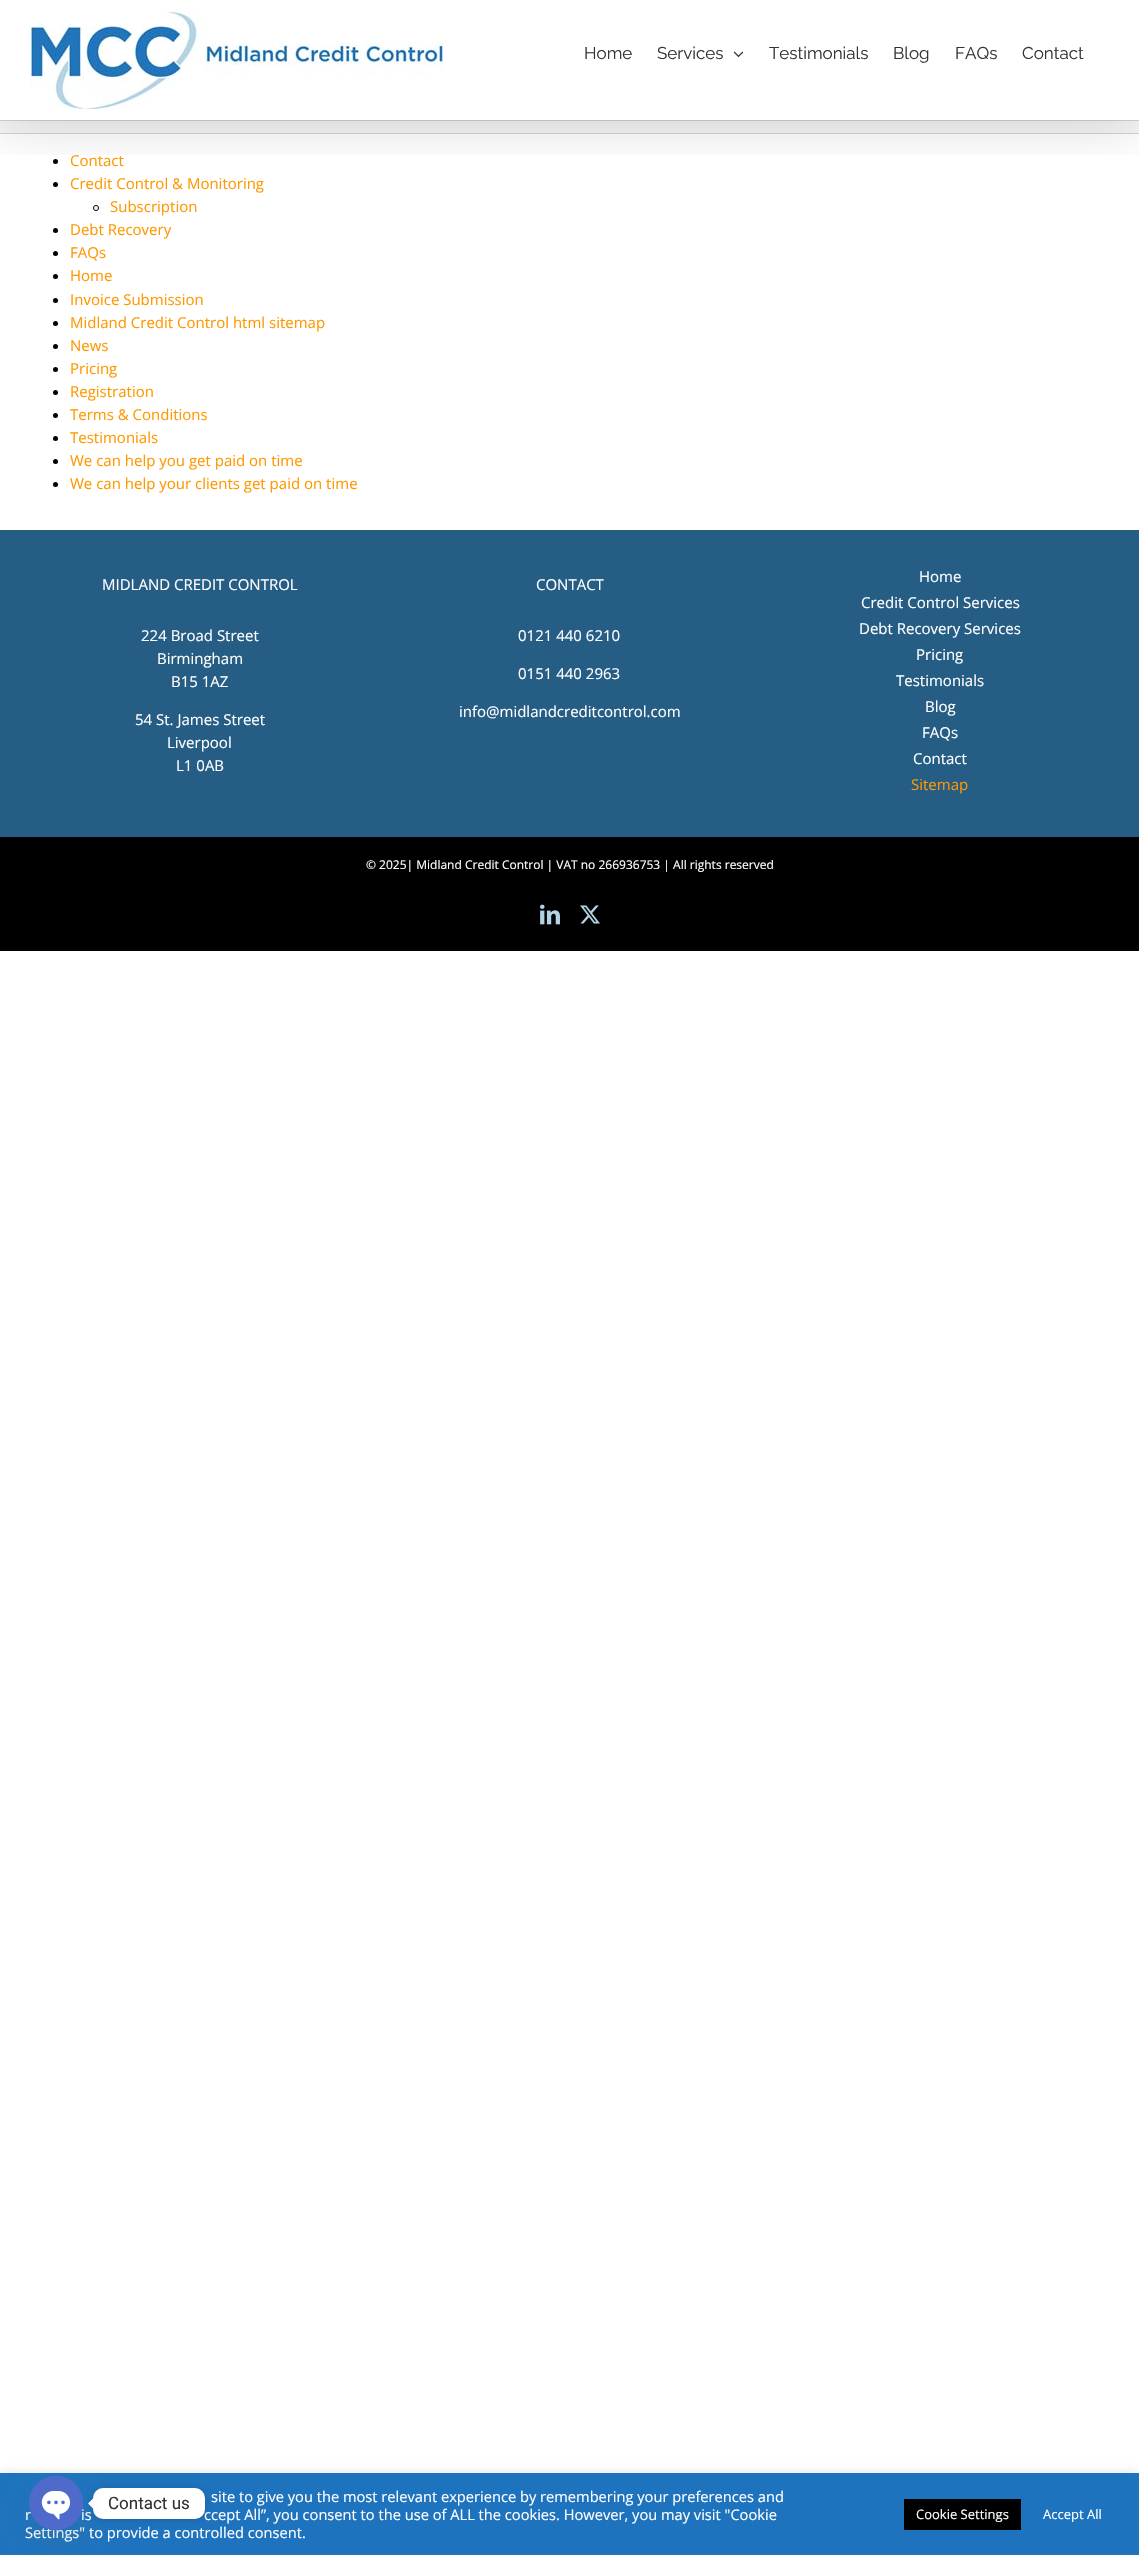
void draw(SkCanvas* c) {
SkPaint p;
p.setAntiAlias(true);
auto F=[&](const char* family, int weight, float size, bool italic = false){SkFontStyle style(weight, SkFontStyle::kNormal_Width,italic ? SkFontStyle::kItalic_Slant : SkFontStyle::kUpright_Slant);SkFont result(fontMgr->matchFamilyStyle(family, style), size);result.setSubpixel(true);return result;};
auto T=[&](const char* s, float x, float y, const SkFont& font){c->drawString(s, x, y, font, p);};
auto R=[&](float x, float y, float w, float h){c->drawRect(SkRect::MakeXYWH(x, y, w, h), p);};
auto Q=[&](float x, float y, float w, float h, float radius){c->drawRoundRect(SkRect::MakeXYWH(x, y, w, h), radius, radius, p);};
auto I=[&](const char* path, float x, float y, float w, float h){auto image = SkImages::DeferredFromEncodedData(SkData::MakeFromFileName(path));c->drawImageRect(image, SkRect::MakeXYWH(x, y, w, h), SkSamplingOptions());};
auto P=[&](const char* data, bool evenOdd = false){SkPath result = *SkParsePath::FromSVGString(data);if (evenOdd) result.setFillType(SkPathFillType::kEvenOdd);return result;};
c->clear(0xffffffff);
p.setColor(0xfff6f6f6);
R(0,121,1139,12);
p.setColor(0xffd2d3d4);
R(0,120,1139,1);
R(0,133,1139,1);
p.setColor(0xff000000);
c->drawCircle(55.5,161.5,2.5,p);
c->drawCircle(55.5,184.5,2.5,p);
c->save();
c->clipRect(SkRect::MakeXYWH(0,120,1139,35));
p.setColor(0x24000000);
p.setMaskFilter(SkMaskFilter::MakeBlur(kNormal_SkBlurStyle, 25));
c->drawRect(SkRect::MakeXYWH(2,12,1135,116),p);
p.setMaskFilter(nullptr);
c->restore();
I("1.png",30,10,413,100);
auto f1 = F("Raleway",100,17);
p.setColor(0xff333333);
T("Home",584,59,f1);
T("Services",657,59,f1);
I("2.png",733,51,11,7);
T("Testimonials",769,59,f1);
T("Blog",893,59,f1);
T("FAQs",955,59,f1);
T("Contact",1022,59,f1);
auto f2 = F("Open Sans",400,15);
p.setColor(0xffff9800);
T("Contact",70,166,f2);
T("Credit Control & Monitoring",70,189,f2);
p.setStroke(true);
p.setStrokeWidth(1);
p.setColor(0xff000000);
c->drawCircle(96,208,2.5,p);
p.setStroke(false);
p.setColor(0xffff9800);
T("Subscription",110,212,f2);
p.setColor(0xff000000);
c->drawCircle(55.5,230.5,2.5,p);
p.setColor(0xffff9800);
T("Debt Recovery",70,235,f2);
p.setColor(0xff000000);
c->drawCircle(55.5,253.5,2.5,p);
p.setColor(0xffff9800);
T("FAQs",70,258,f2);
p.setColor(0xff000000);
c->drawCircle(55.5,276.5,2.5,p);
p.setColor(0xffff9800);
T("Home",70,281,f2);
p.setColor(0xff000000);
c->drawCircle(55.5,300.5,2.5,p);
p.setColor(0xffff9800);
T("Invoice Submission",70,305,f2);
p.setColor(0xff000000);
c->drawCircle(55.5,323.5,2.5,p);
p.setColor(0xffff9800);
T("Midland Credit Control html sitemap",70,328,f2);
p.setColor(0xff000000);
c->drawCircle(55.5,346.5,2.5,p);
p.setColor(0xffff9800);
T("News",70,351,f2);
p.setColor(0xff000000);
c->drawCircle(55.5,369.5,2.5,p);
p.setColor(0xffff9800);
T("Pricing",70,374,f2);
p.setColor(0xff000000);
c->drawCircle(55.5,392.5,2.5,p);
p.setColor(0xffff9800);
T("Registration",70,397,f2);
p.setColor(0xff000000);
c->drawCircle(55.5,415.5,2.5,p);
p.setColor(0xffff9800);
T("Terms & Conditions",70,420,f2);
p.setColor(0xff000000);
c->drawCircle(55.5,438.5,2.5,p);
p.setColor(0xffff9800);
T("Testimonials",70,443,f2);
p.setColor(0xff000000);
c->drawCircle(55.5,461.5,2.5,p);
p.setColor(0xffff9800);
T("We can help you get paid on time",70,466,f2);
p.setColor(0xff000000);
c->drawCircle(55.5,484.5,2.5,p);
p.setColor(0xffff9800);
T("We can help your clients get paid on time",70,489,f2);
p.setColor(0xff255d84);
R(0,530,1139,307);
p.setColor(0xffffffff);
T("MIDLAND CREDIT CONTROL",102,590,f2);
T("224 Broad Street",141,641,f2);
T("Birmingham",157,664,f2);
T("B15 1AZ",171,687,f2);
T("54 St. James Street",135,725,f2);
T("Liverpool",167,748,f2);
T("L1 0AB",176,771,f2);
T("CONTACT",536,590,f2);
T("0121 440 6210",518,641,f2);
T("0151 440 2963",518,679,f2);
T("info@midlandcreditcontrol.com",459,717,f2);
T("Home",919,582,f2);
T("Credit Control Services",861,608,f2);
T("Debt Recovery Services",859,634,f2);
T("Pricing",916,660,f2);
T("Testimonials",896,686,f2);
T("Blog",925,712,f2);
T("FAQs",922,738,f2);
T("Contact",913,764,f2);
p.setColor(0xffff9800);
T("Sitemap",911,790,f2);
p.setColor(0xff000000);
R(0,837,1139,114);
auto f3 = F("Open Sans",400,12);
p.setColor(0xffffffff);
T("© 2025| Midland Credit Control | VAT no 266936753 | All rights reserved",366,869,f3);
I("3.png",540,904,20,21);
I("4.png",580,905,20,19);
p.setColor(0x4dacabab);
p.setMaskFilter(SkMaskFilter::MakeBlur(kNormal_SkBlurStyle, 5));
c->drawRect(SkRect::MakeXYWH(0,2472,1139,82),p);
p.setMaskFilter(nullptr);
p.setColor(0xff1e73be);
R(0,2473,1139,82);
auto f4 = F("Open Sans",400,14.65);
p.setColor(0xffffffff);
T("site to give you the most relevant experience by remembering your preferences and",211,2502,f4);
T("r",25,2520,f4);
T("is",81,2520,f4);
T("ccept All”, you consent to the use of ALL the cookies. However, you may visit \"Cookie",204,2520,f4);
T("Settings\" to provide a controlled consent.",25,2538,f4);
p.setColor(0xff000000);
R(904,2499,117,31);
auto f5 = F("Open Sans",400,13);
p.setColor(0xffffffff);
T("Cookie Settings",916,2519,f5);
T("Accept All",1043,2519,f5);
p.setColor(0x26000000);
p.setMaskFilter(SkMaskFilter::MakeBlur(kNormal_SkBlurStyle, 4));
c->drawRoundRect(SkRect::MakeXYWH(93,2489,112,31),10,10,p);
p.setMaskFilter(nullptr);
p.setColor(0xffffffff);
Q(93,2488,112,31,10);
c->drawPath(P("M93 2498.5v10l-5-5z"),p);
p.setColor(0x2949687e);
p.setMaskFilter(SkMaskFilter::MakeBlur(kNormal_SkBlurStyle, 12));
c->drawRoundRect(SkRect::MakeXYWH(29,2492,54,54),27,27,p);
p.setMaskFilter(nullptr);
I("5.png",29,2476,54,54);
auto f6 = F("Roboto",400,17);
p.setColor(0xff333333);
T("Contact us",108,2509,f6);
}
